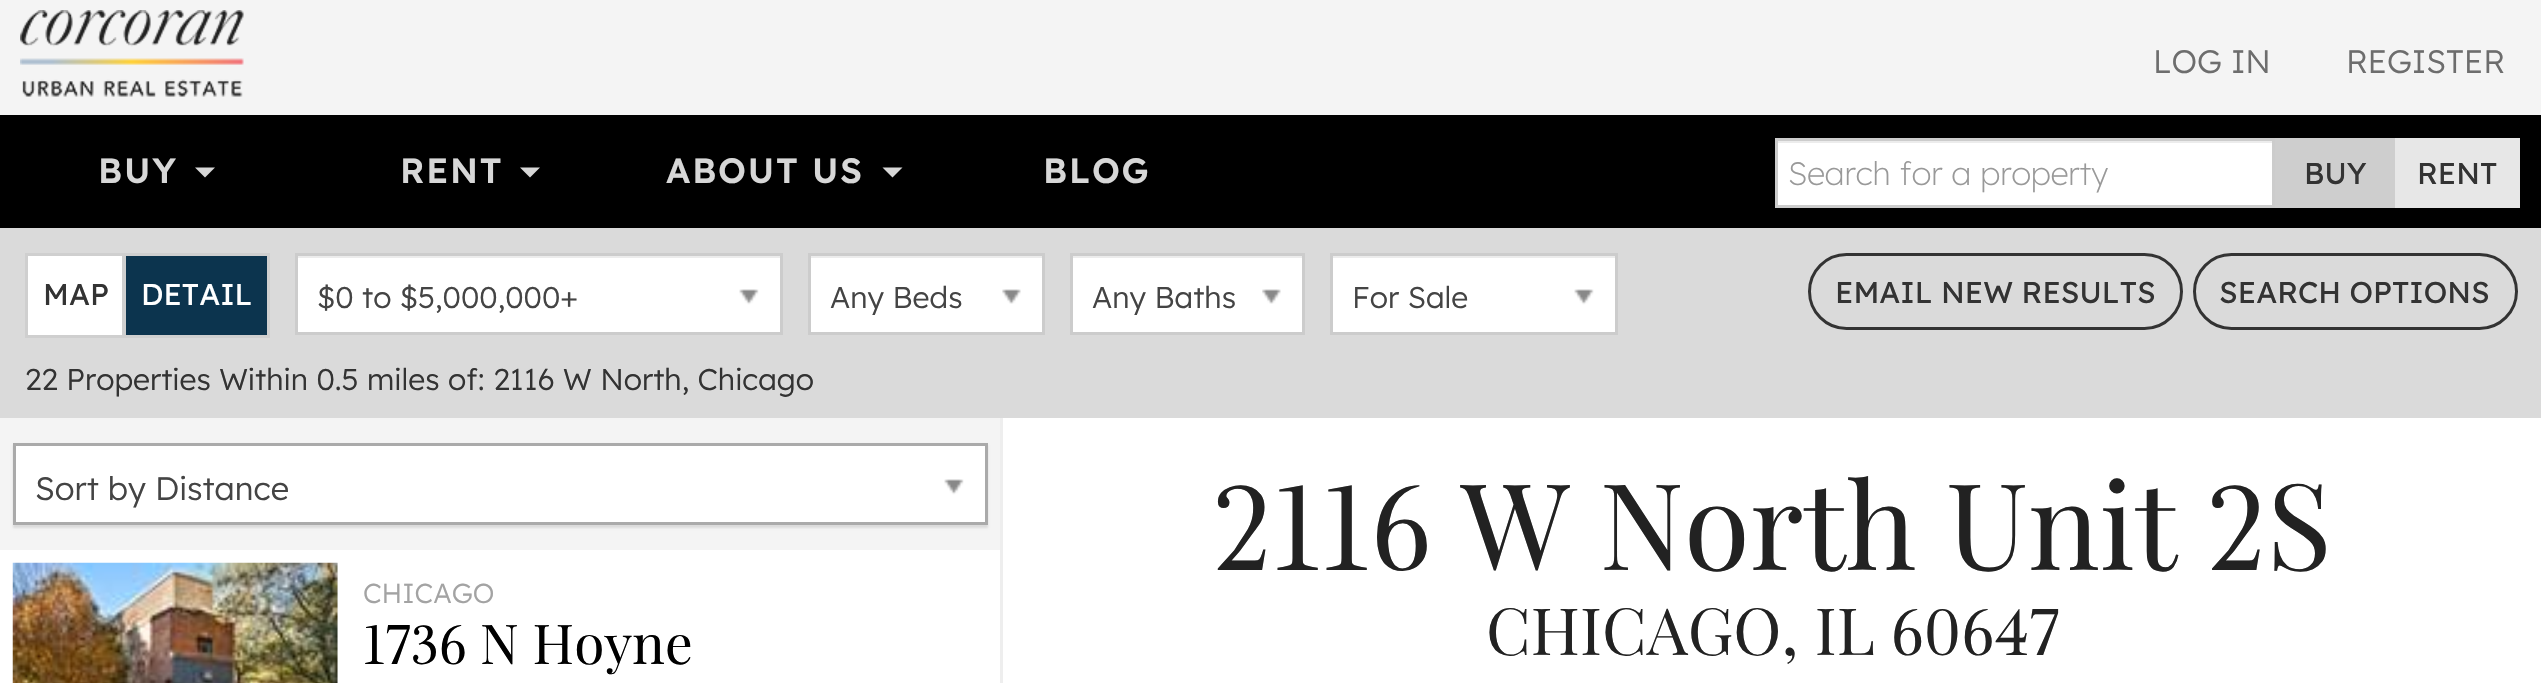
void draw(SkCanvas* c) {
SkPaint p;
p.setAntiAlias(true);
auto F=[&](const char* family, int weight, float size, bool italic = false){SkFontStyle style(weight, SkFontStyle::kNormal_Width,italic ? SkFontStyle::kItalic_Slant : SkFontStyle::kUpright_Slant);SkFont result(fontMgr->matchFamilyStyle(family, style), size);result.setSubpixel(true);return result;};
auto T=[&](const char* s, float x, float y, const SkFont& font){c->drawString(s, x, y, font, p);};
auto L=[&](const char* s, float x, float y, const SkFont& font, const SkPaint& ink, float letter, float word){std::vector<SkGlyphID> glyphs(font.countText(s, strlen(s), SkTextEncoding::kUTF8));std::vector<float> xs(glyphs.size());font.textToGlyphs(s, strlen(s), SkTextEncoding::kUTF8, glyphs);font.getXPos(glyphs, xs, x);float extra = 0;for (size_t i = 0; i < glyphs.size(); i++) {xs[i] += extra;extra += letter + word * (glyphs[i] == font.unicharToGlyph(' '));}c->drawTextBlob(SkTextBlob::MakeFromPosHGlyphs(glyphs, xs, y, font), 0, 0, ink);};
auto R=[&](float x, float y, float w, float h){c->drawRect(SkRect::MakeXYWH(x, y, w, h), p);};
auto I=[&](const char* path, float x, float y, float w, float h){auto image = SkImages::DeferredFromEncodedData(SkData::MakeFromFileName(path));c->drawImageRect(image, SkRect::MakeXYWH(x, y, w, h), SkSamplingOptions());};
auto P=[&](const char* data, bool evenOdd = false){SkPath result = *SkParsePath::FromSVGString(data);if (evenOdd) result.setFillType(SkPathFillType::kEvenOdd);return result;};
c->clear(0xfff4f4f4);
I("1.png",20,10,224,87);
auto f1 = F("Lexend",400,32.5);
p.setColor(0xff6d6d6d);
T("LOG IN",2153,73,f1);
T("REGISTER",2346,73,f1);
p.setColor(0xff000000);
R(0,115,2541,113);
auto f2 = F("Lexend",600,35);
p.setColor(0xffd7d7d7);
L("BUY",98,183,f2,p,1.75,0);
c->drawPath(P("M195 167.5h20l-10 10z"),p);
L("RENT",400,183,f2,p,1.75,0);
c->drawPath(P("M520 167.5h20l-10 10z"),p);
L("ABOUT US",666,183,f2,p,1.75,0);
c->drawPath(P("M882.5 167.5h20l-10 10z"),p);
L("BLOG",1043,183,f2,p,1.75,0);
p.setColor(0xffffffff);
R(1778,143,494,62);
p.setColor(0xffececec);
R(1778,141,495,2);
p.setStroke(true);
p.setStrokeWidth(3);
p.setColor(0xffcccccc);
c->drawRect(SkRect::MakeXYWH(1776.5,139.5,497,67),p);
auto f3 = F("Lexend",300,32.5);
p.setStroke(false);
p.setColor(0xff999999);
T("Search for a property",1788,185,f3);
p.setColor(0xffcecece);
R(2275,138,120,70);
auto f4 = F("Lexend",500,30);
p.setColor(0xff333333);
T("BUY",2304,184,f4);
p.setColor(0xffe7e7e7);
R(2395,138,125,70);
p.setColor(0xff333333);
T("RENT",2417,184,f4);
p.setColor(0xffdadada);
R(0,228,2541,190);
p.setColor(0xffffffff);
c->drawRect(SkRect::MakeXYWH(26.5,254.5,97,82),p);
p.setStroke(true);
p.setColor(0xffcfcfcf);
c->drawRect(SkRect::MakeXYWH(26.5,254.5,97,82),p);
p.setStroke(false);
p.setColor(0xff333333);
T("MAP",43,305,f4);
p.setColor(0xff0c344e);
c->drawRect(SkRect::MakeXYWH(124.5,254.5,144,82),p);
p.setStroke(true);
p.setColor(0xffcfcfcf);
c->drawRect(SkRect::MakeXYWH(124.5,254.5,144,82),p);
p.setStroke(false);
p.setColor(0xffffffff);
T("DETAIL",141,305,f4);
R(298,258,482,74);
p.setColor(0xffececec);
R(298,256,482,2);
p.setStroke(true);
p.setColor(0xffcccccc);
c->drawRect(SkRect::MakeXYWH(296.5,254.5,485,79),p);
auto f5 = F("Lexend",400,30);
p.setStroke(false);
p.setColor(0xff444444);
T("$0 to $5,000,000+",317,308,f5);
I("2.png",739,289,20,16);
p.setColor(0xffffffff);
R(811,258,231,74);
p.setColor(0xffececec);
R(810,256,233,2);
p.setStroke(true);
p.setColor(0xffcccccc);
c->drawRect(SkRect::MakeXYWH(809.5,254.5,234,79),p);
p.setStroke(false);
p.setColor(0xff444444);
T("Any Beds",830,308,f5);
I("3.png",1002,289,19,15);
p.setColor(0xffffffff);
R(1073,258,229,74);
p.setColor(0xffececec);
R(1073,256,230,2);
p.setStroke(true);
p.setColor(0xffcccccc);
c->drawRect(SkRect::MakeXYWH(1071.5,254.5,232,79),p);
p.setStroke(false);
p.setColor(0xff444444);
T("Any Baths",1092,308,f5);
I("4.png",1262,289,19,15);
p.setColor(0xffffffff);
R(1333,258,282,74);
p.setColor(0xffececec);
R(1333,256,282,2);
p.setStroke(true);
p.setColor(0xffcccccc);
c->drawRect(SkRect::MakeXYWH(1331.5,254.5,285,79),p);
p.setStroke(false);
p.setColor(0xff444444);
T("For Sale",1352,308,f5);
I("5.png",1574,289,20,16);
p.setStroke(true);
p.setColor(0xff333333);
c->drawRoundRect(SkRect::MakeXYWH(1809.5,254.5,372,74),37,37,p);
p.setStroke(false);
T("EMAIL NEW RESULTS",1835,303,f4);
p.setStroke(true);
c->drawRoundRect(SkRect::MakeXYWH(2194.5,254.5,322,74),37,37,p);
p.setStroke(false);
T("SEARCH OPTIONS",2219,303,f4);
T("22 Properties Within 0.5 miles of: 2116 W North, Chicago",25,390,f5);
p.setColor(0x1a000000);
p.setMaskFilter(SkMaskFilter::MakeBlur(kNormal_SkBlurStyle, 1));
c->drawRect(SkRect::MakeXYWH(13,445,975,83),p);
p.setMaskFilter(nullptr);
p.setColor(0xffffffff);
c->drawRect(SkRect::MakeXYWH(14.5,444.5,972,79),p);
p.setStroke(true);
p.setColor(0xffaaaaaa);
c->drawRect(SkRect::MakeXYWH(14.5,444.5,972,79),p);
p.setStroke(false);
p.setColor(0xff444444);
T("Sort by Distance",35,500,f1);
I("2.png",944,479,20,16);
p.setColor(0xffffffff);
R(0,550,1000,133);
p.setColor(0xffeeeeee);
R(337,563,1,120);
I("6.png",12,562,326,121);
auto f6 = F("Lexend",400,27.5);
p.setColor(0xffa3a3a3);
T("CHICAGO",363,603,f6);
auto f7 = F("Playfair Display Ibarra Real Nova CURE",400,55);
p.setColor(0xff000000);
T("1736 N Hoyne",363,664,f7);
p.setColor(0xffffffff);
R(1003,418,1538,265);
p.setColor(0xffeeeeee);
R(1000,418,3,265);
auto f8 = F("Playfair Display Ibarra Real Nova CURE",400,120);
p.setColor(0xff222222);
T("2116 W North Unit 2S",1213,570,f8);
auto f9 = F("Playfair Display Ibarra Real Nova CURE",400,65);
T("CHICAGO, IL 60647",1486,655,f9);
}
